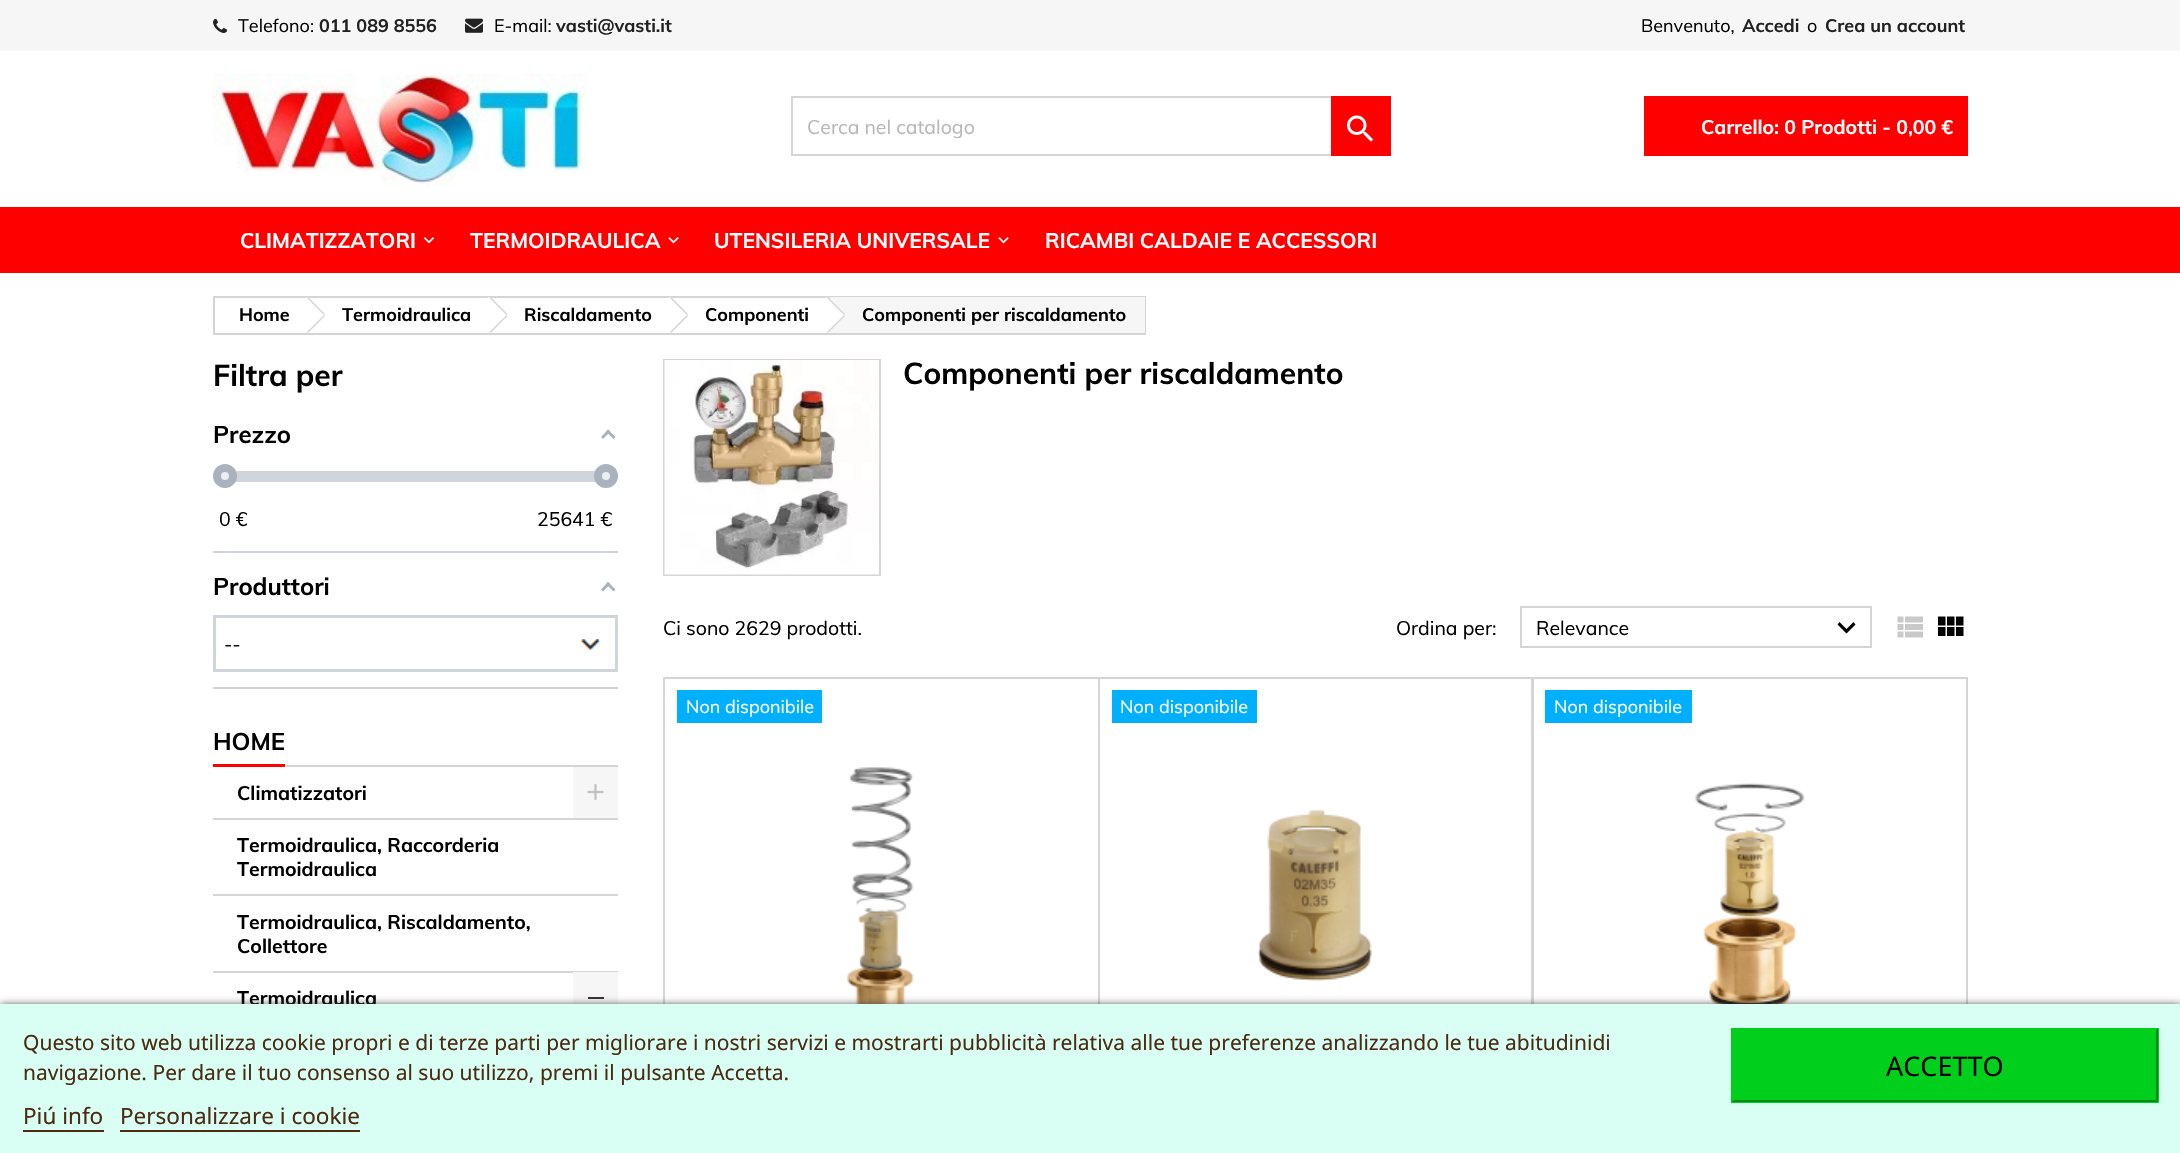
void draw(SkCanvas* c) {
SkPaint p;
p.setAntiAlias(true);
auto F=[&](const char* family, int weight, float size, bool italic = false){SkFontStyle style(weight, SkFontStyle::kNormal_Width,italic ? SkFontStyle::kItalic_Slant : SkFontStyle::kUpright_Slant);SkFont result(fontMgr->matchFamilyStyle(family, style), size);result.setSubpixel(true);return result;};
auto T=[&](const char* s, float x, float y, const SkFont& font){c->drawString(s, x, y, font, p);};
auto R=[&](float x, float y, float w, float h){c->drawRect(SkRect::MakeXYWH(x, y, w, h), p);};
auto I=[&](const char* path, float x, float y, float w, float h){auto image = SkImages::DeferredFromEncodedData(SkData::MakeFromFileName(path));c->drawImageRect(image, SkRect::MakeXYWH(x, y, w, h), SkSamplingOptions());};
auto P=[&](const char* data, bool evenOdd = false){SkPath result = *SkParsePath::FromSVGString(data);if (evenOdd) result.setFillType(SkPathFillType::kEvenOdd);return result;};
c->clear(0xffffffff);
p.setColor(0xfff6f6f6);
R(0,0,2180,51);
I("1.png",213,18,15,15);
auto f1 = F("Muli",400,18);
p.setColor(0xff000000);
T("Telefono:",238,32,f1);
auto f2 = F("Muli",700,18);
p.setColor(0xff222222);
T("011 089 8556",319,32,f2);
I("2.png",465,18,18,15);
p.setColor(0xff000000);
T("E-mail:",494,32,f1);
p.setColor(0xff222222);
T("vasti@vasti.it",556,32,f2);
p.setColor(0xff000000);
T("Benvenuto,",1641,32,f1);
p.setColor(0xff222222);
T("Accedi",1742,32,f2);
p.setColor(0xff000000);
T("o",1807,32,f1);
p.setColor(0xff222222);
T("Crea un account",1825,32,f2);
I("3.png",213,73,375,113);
p.setStroke(true);
p.setStrokeWidth(2);
p.setColor(0xffd6d4d4);
c->drawRect(SkRect::MakeXYWH(792,97,598,58),p);
c->save();
c->clipRect(SkRect::MakeXYWH(807,114,567,24));
auto f3 = F("Muli",400,19.5);
p.setStroke(false);
p.setColor(0xffb7b7b7);
T("Cerca nel catalogo",807,134,f3);
c->restore();
p.setColor(0xffff0000);
R(1331,96,60,60);
I("4.png",1347,115,27,27);
R(1644,96,324,60);
auto f4 = F("Muli",700,19.5);
p.setColor(0xffffffff);
T("Carrello: 0 Prodotti - 0,00 €",1701,134,f4);
p.setColor(0xffff0000);
R(0,207,2180,66);
auto f5 = F("Muli",700,21);
p.setColor(0xffffffff);
T("CLIMATIZZATORI",240,248,f5);
I("5.png",423,237,12,7);
T("TERMOIDRAULICA",470,248,f5);
I("6.png",668,237,11,7);
T("UTENSILERIA UNIVERSALE",714,248,f5);
I("6.png",998,237,11,7);
T("RICAMBI CALDAIE E ACCESSORI",1045,248,f5);
p.setStroke(true);
p.setColor(0xffd6d4d4);
c->drawRect(SkRect::MakeXYWH(214,297,931,37),p);
p.setStroke(false);
p.setColor(0xff000000);
T("Home",239,321,f2);
p.setColor(0xffffffff);
c->drawPath(P("M309.5 298l14.5 15c1.5 1 1.5 3 0 4l-14.5 15c-1.5 1-3.5 1-4.5 0l-15-15c-1-1-1-3 0-4l15-15c1-1 3-1 4.5 0z"),p);
p.setColor(0xffd6d4d4);
c->drawPath(P("M308 297l17 17l-1 1l-17-17zm16 18l1 1l-17 17l-1-1z"),p);
p.setColor(0xff000000);
T("Termoidraulica",342,321,f2);
p.setColor(0xffffffff);
c->drawPath(P("M491.5 298l15 15c1 1 1 3 0 4l-15 15c-1.5 1-3 1-4.5 0l-14.5-15c-1.5-1-1.5-3 0-4l14.5-15c1.5-1 3-1 4.5 0z"),p);
p.setColor(0xffd6d4d4);
c->drawPath(P("M490.5 297l17 17l-1 1l-17-17zm16 18l1 1l-17 17l-1-1z"),p);
p.setColor(0xff000000);
T("Riscaldamento",524,321,f2);
p.setColor(0xffffffff);
c->drawPath(P("M672 298l15 15c1 1 1 3 0 4l-15 15c-1 1-3 1-4 0l-15-15c-1-1-1-3 0-4l15-15c1-1 3-1 4 0z"),p);
p.setColor(0xffd6d4d4);
c->drawPath(P("M671 297l17 17l-1 1l-17-17zm16 18l1 1l-17 17l-1-1z"),p);
p.setColor(0xff000000);
T("Componenti",705,321,f2);
p.setColor(0xfff6f6f6);
R(830,297,315,36);
p.setColor(0xffffffff);
c->drawPath(P("M829 298l15 15c1 1 1 3 0 4l-15 15c-1 1-3 1-4 0l-15-15c-1-1-1-3 0-4l15-15c1-1 3-1 4 0z"),p);
p.setColor(0xffd6d4d4);
c->drawPath(P("M828 297l17 17l-1 1l-17-17zm16 18l1 1l-17 17l-1-1z"),p);
p.setColor(0xff000000);
T("Componenti per riscaldamento",862,321,f2);
auto f6 = F("Muli",700,30);
T("Filtra per",213,386,f6);
p.setColor(0xffd0d5db);
R(213,551,405,2);
auto f7 = F("Muli",700,24);
p.setColor(0xff000000);
T("Prezzo",213,443,f7);
p.setColor(0xffaab2bd);
c->drawPath(P("M608 429.5l7.5 7.5l-2 2l-7.5-7.5z"),p);
c->drawPath(P("M608 429.5l2.5 2l-7.5 7.5l-2-2z"),p);
p.setColor(0xffd0d5db);
R(235,471,361,11);
p.setColor(0xffeceff0);
c->drawCircle(225,476,8,p);
p.setStroke(true);
p.setStrokeWidth(8);
p.setColor(0xffaab2bd);
c->drawCircle(225,476,8,p);
p.setStroke(false);
p.setColor(0xffeceff0);
c->drawCircle(606,476,8,p);
p.setStroke(true);
p.setColor(0xffaab2bd);
c->drawCircle(606,476,8,p);
p.setStroke(false);
p.setColor(0xff000000);
T("0 €",219,526,f3);
T("25641 €",537,526,f3);
p.setColor(0xffd0d5db);
R(213,687,405,2);
p.setColor(0xff000000);
T("Produttori",213,595,f7);
p.setColor(0xffaab2bd);
c->drawPath(P("M608 582l7.5 7.5l-2 2l-7.5-7.5z"),p);
c->drawPath(P("M608 582l2.5 2l-7.5 7.5l-2-2z"),p);
I("7.png",580,639,21,11);
p.setStroke(true);
p.setStrokeWidth(3);
p.setColor(0xffd0d5db);
c->drawRect(SkRect::MakeXYWH(214.5,616.5,402,54),p);
p.setStroke(false);
p.setColor(0xff000000);
T("--",224,651,f3);
p.setColor(0xffd6d4d4);
R(285,765,333,2);
p.setColor(0xffff0000);
R(213,764,72,3);
p.setColor(0xff000000);
T("HOME",213,750,f7);
p.setColor(0xffd6d4d4);
R(213,818,405,2);
p.setColor(0xff000000);
T("Climatizzatori",237,800,f4);
p.setColor(0xfff6f6f6);
R(573,767,45,51);
I("8.png",587,784,17,16);
p.setColor(0xffd6d4d4);
R(213,894,405,2);
p.setColor(0xff000000);
T("Termoidraulica, Raccorderia",237,852,f4);
T("Termoidraulica",237,876,f4);
p.setColor(0xffd6d4d4);
R(213,971,405,2);
p.setColor(0xff000000);
T("Termoidraulica, Riscaldamento,",237,929,f4);
T("Collettore",237,953,f4);
T("Termoidraulica",237,1005,f4);
p.setColor(0xfff6f6f6);
R(573,972,45,32);
p.setColor(0xff333333);
R(588,997,16,2);
p.setStroke(true);
p.setStrokeWidth(2);
p.setColor(0xffd6d4d4);
c->drawRect(SkRect::MakeXYWH(664,360,216,215),p);
I("9.png",664,360,215,215);
p.setStroke(false);
p.setColor(0xff000000);
T("Componenti per riscaldamento",903,384,f6);
T("Ci sono 2629 prodotti.",663,635,f3);
T("Ordina per:",1396,635,f3);
p.setStroke(true);
p.setColor(0xffd6d4d4);
c->drawRect(SkRect::MakeXYWH(1521,607,350,40),p);
p.setStroke(false);
p.setColor(0xff000000);
T("Relevance",1536,635,f3);
c->drawPath(P("M1839.5 622l7 7l7-7l2 2.5l-9 9l-9-9z"),p);
I("10.png",1897,616,26,22);
I("11.png",1937,616,27,20);
p.setStroke(true);
p.setColor(0xffd6d4d4);
c->drawRect(SkRect::MakeXYWH(664,678,435,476),p);
p.setStroke(false);
p.setColor(0xff00b0ff);
R(677,690,145,33);
p.setColor(0xffffffff);
T("Non disponibile",686,713,f1);
I("12.png",847,767,67,237);
p.setStroke(true);
p.setColor(0xffd6d4d4);
c->drawRect(SkRect::MakeXYWH(1099,678,433,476),p);
p.setStroke(false);
p.setColor(0xff00b0ff);
R(1112,690,145,33);
p.setColor(0xffffffff);
T("Non disponibile",1120,713,f1);
I("13.png",1257,810,115,172);
p.setStroke(true);
p.setColor(0xffd6d4d4);
c->drawRect(SkRect::MakeXYWH(1533,678,434,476),p);
p.setStroke(false);
p.setColor(0xff00b0ff);
R(1545,690,147,33);
p.setColor(0xffffffff);
T("Non disponibile",1554,713,f1);
I("14.png",1695,783,110,221);
p.setColor(0xff3b3b3b);
p.setMaskFilter(SkMaskFilter::MakeBlur(kNormal_SkBlurStyle, 4));
c->drawRect(SkRect::MakeXYWH(0,1005,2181,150),p);
p.setMaskFilter(nullptr);
p.setColor(0xffd9fff4);
R(0,1004,2180,149);
auto f8 = F("Noto Sans",400,21);
p.setColor(0xff4c2b11);
T("Questo sito web utilizza cookie propri e di terze parti per migliorare i nostri servizi e mostrarti pubblicità relativa alle tue preferenze analizzando le tue abitudinidi",23,1050,f8);
T("navigazione. Per dare il tuo consenso al suo utilizzo, premi il pulsante Accetta.",23,1080,f8);
auto f9 = F("Noto Sans",400,22.5);
T("Piú info",23,1124,f9);
R(23,1130,81,2);
T("Personalizzare i cookie",120,1124,f9);
R(120,1130,240,2);
p.setColor(0xff00d01b);
R(1731,1028,428,75);
p.setColor(0xff008b12);
c->drawPath(P("M2158 1028v74l-2-2v-70z"),p);
c->drawPath(P("M2158 1102h-427l3-2h422z"),p);
p.setColor(0xff00d01b);
c->drawPath(P("M1731 1102v-74l3 2v70z"),p);
auto f10 = F("Noto Sans",400,27);
p.setColor(0xff000000);
T("ACCETTO",1886,1076,f10);
}
